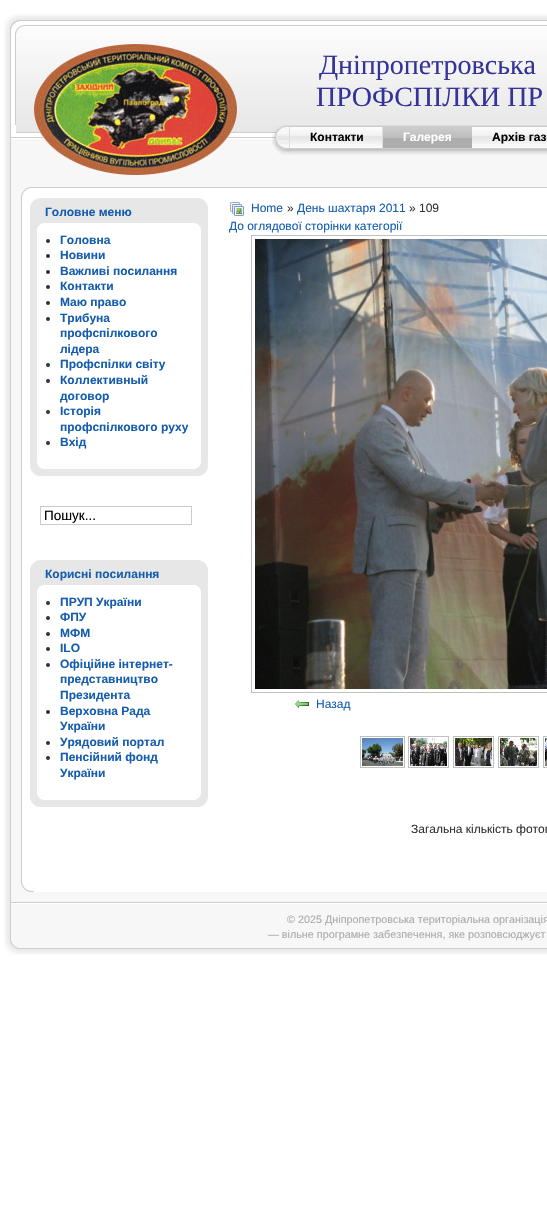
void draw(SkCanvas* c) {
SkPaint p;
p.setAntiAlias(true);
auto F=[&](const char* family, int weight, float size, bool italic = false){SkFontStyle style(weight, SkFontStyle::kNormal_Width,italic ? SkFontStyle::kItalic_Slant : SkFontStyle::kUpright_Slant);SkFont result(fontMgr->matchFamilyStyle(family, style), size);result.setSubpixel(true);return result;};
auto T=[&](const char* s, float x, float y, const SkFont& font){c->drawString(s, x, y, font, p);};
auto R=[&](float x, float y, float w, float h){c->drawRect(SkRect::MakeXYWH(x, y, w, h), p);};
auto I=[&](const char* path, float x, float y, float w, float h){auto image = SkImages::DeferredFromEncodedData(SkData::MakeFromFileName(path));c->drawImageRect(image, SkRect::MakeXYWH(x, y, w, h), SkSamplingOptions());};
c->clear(0xffffffff);
p.setColor(0xfff7f7f7);
R(11,139,536,763);
I("1.png",0,125,11,777);
I("2.png",0,10,547,115);
I("3.png",0,14,24,111);
I("5.png",11,125,261,14);
I("4.png",34,44,203,131);
auto f1 = F("Liberation Serif",400,28);
p.setColor(0xff333399);
T("Дніпропетровська",319,74,f1);
T("ПРОФСПІЛКИ ПР",316,106,f1);
p.setColor(0xffffffff);
R(11,125,5,8);
I("6.png",272,125,18,30);
I("7.png",290,125,257,30);
p.setColor(0xffdfdfdf);
R(382,127,1,21);
auto f2 = F("Liberation Sans",700,12);
p.setColor(0xff000000);
T("Контакти",310,141,f2);
I("8.png",383,127,89,21);
p.setColor(0xffffffff);
T("Галерея",403,141,f2);
p.setColor(0xff000000);
T("Архів газ",492,141,f2);
p.setColor(0xffffffff);
R(22,188,525,694);
p.setColor(0xffcdcdcd);
R(30,187,517,1);
I("9.png",21,187,9,10);
p.setColor(0xffcccccc);
R(21,197,1,687);
I("10.png",43,237,165,239);
I("11.png",30,237,13,239);
I("12.png",43,198,165,39);
I("13.png",30,198,13,39);
p.setColor(0xff135cae);
T("Головне меню",45,216,f2);
p.setColor(0xff333333);
c->drawCircle(48,241,2,p);
p.setColor(0xff135cae);
T("Головна",60,244,f2);
p.setColor(0xff333333);
c->drawCircle(48,256,2,p);
p.setColor(0xff135cae);
T("Новини",60,259,f2);
p.setColor(0xff333333);
c->drawCircle(48,272,2,p);
p.setColor(0xff135cae);
T("Важливі посилання",60,275,f2);
p.setColor(0xff333333);
c->drawCircle(48,287,2,p);
p.setColor(0xff135cae);
T("Контакти",60,290,f2);
p.setColor(0xff333333);
c->drawCircle(48,303,2,p);
p.setColor(0xff135cae);
T("Маю право",60,306,f2);
p.setColor(0xff333333);
c->drawCircle(48,319,2,p);
p.setColor(0xff135cae);
T("Трибуна",60,322,f2);
T("профспілкового",60,337,f2);
T("лідера",60,353,f2);
p.setColor(0xff333333);
c->drawCircle(48,365,2,p);
p.setColor(0xff135cae);
T("Профспілки світу",60,368,f2);
p.setColor(0xff333333);
c->drawCircle(48,381,2,p);
p.setColor(0xff135cae);
T("Коллективный",60,384,f2);
T("договор",60,400,f2);
p.setColor(0xff333333);
c->drawCircle(48,412,2,p);
p.setColor(0xff135cae);
T("Історія",60,415,f2);
T("профспілкового руху",60,431,f2);
p.setColor(0xff333333);
c->drawCircle(48,443,2,p);
p.setColor(0xff135cae);
T("Вхід",60,446,f2);
p.setStroke(true);
p.setStrokeWidth(1);
p.setColor(0xffcccccc);
c->drawRect(SkRect::MakeXYWH(40.5,506.5,151,18),p);
auto f3 = F("Liberation Sans",400,13.5);
p.setStroke(false);
p.setColor(0xff000000);
T("Пошук...",44,520,f3);
I("14.png",43,599,165,208);
I("15.png",30,599,13,208);
I("12.png",43,560,165,39);
I("13.png",30,560,13,39);
p.setColor(0xff135cae);
T("Корисні посилання",45,578,f2);
p.setColor(0xff333333);
c->drawCircle(48,603,2,p);
p.setColor(0xff135cae);
T("ПРУП України",60,606,f2);
p.setColor(0xff333333);
c->drawCircle(48,618,2,p);
p.setColor(0xff135cae);
T("ФПУ",60,621,f2);
p.setColor(0xff333333);
c->drawCircle(48,634,2,p);
p.setColor(0xff135cae);
T("МФМ",60,637,f2);
p.setColor(0xff333333);
c->drawCircle(48,649,2,p);
p.setColor(0xff135cae);
T("ILO",60,652,f2);
p.setColor(0xff333333);
c->drawCircle(48,665,2,p);
p.setColor(0xff135cae);
T("Офіційне інтернет-",60,668,f2);
T("представництво",60,683,f2);
T("Президента",60,699,f2);
p.setColor(0xff333333);
c->drawCircle(48,712,2,p);
p.setColor(0xff135cae);
T("Верховна Рада",60,715,f2);
T("України",60,730,f2);
p.setColor(0xff333333);
c->drawCircle(48,743,2,p);
p.setColor(0xff135cae);
T("Урядовий портал",60,746,f2);
p.setColor(0xff333333);
c->drawCircle(48,758,2,p);
p.setColor(0xff135cae);
T("Пенсійний фонд",60,761,f2);
T("України",60,777,f2);
I("16.png",230,202,14,14);
auto f4 = F("Liberation Sans",400,12);
T("Home",251,212,f4);
p.setColor(0xff333333);
T("»",287,212,f4);
p.setColor(0xff135cae);
T("День шахтаря 2011",297,212,f4);
p.setColor(0xff333333);
T("» 109",409,212,f4);
p.setColor(0xff135cae);
T("До оглядової сторінки категорії",229,230,f4);
p.setStroke(true);
p.setColor(0xffc0c0c0);
c->drawRect(SkRect::MakeXYWH(251.5,235.5,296,457),p);
I("17.png",255,239,292,450);
I("18.png",295,700,14,8);
p.setStroke(false);
p.setColor(0xff135cae);
T("Назад",316,708,f4);
p.setStroke(true);
p.setColor(0xffc0c0c0);
c->drawRect(SkRect::MakeXYWH(360.5,736.5,44,31),p);
c->drawRect(SkRect::MakeXYWH(408.5,736.5,40,31),p);
c->drawRect(SkRect::MakeXYWH(453.5,736.5,40,31),p);
c->drawRect(SkRect::MakeXYWH(498.5,736.5,40,31),p);
c->drawRect(SkRect::MakeXYWH(543.5,736.5,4,31),p);
I("19.png",362,738,41,28);
I("20.png",410,738,37,28);
I("21.png",455,738,37,28);
I("22.png",500,738,37,28);
I("23.png",545,738,2,28);
p.setStroke(false);
p.setColor(0xff333333);
T("Загальна кількість фотог",411,833,f4);
p.setColor(0xffffffff);
R(34,882,513,10);
I("24.png",21,882,13,10);
I("25.png",0,902,547,57);
I("26.png",0,902,18,53);
auto f5 = F("Liberation Sans",400,10.8);
p.setColor(0xffaaaaaa);
T("© 2025 Дніпропетровська територіальна організація",287,923,f5);
T("— вільне програмне забезпечення, яке розповсюджуєт",268,938,f5);
}
